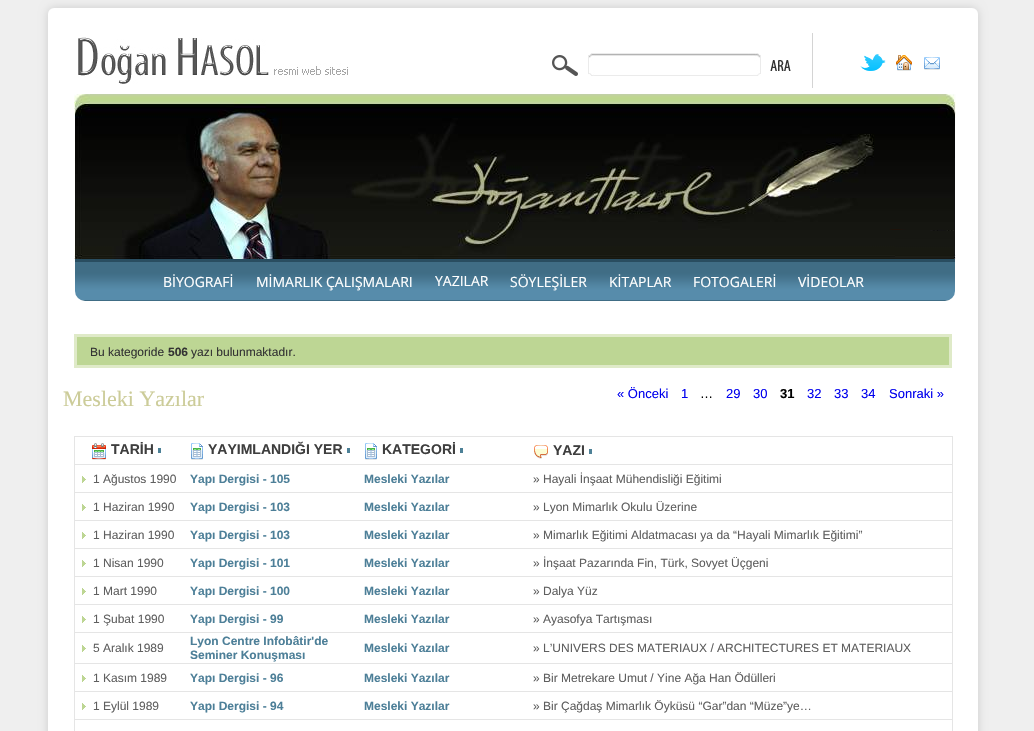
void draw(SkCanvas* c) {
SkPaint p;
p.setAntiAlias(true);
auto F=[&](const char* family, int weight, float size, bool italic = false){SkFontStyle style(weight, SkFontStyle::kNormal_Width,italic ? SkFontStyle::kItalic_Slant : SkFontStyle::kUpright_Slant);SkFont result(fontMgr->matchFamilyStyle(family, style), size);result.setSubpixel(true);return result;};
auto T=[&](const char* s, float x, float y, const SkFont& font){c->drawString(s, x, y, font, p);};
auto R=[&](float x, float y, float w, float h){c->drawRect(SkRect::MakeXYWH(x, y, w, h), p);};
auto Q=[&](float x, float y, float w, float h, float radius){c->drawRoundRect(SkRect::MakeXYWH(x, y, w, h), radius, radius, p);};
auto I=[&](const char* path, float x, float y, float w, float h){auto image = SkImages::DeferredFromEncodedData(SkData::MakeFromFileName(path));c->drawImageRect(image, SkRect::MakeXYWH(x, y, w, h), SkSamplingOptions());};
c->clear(0xffefefef);
p.setColor(0xffcccccc);
p.setMaskFilter(SkMaskFilter::MakeBlur(kNormal_SkBlurStyle, 5));
c->drawRoundRect(SkRect::MakeXYWH(48,8,930,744),6,6,p);
p.setMaskFilter(nullptr);
p.setColor(0xffffffff);
Q(48,8,930,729,6);
I("1.png",78,37,270,47);
I("2.png",552,55,26,21);
I("3.png",588,53,173,23);
I("4.png",770,60,21,11);
p.setColor(0xffd4d4d4);
R(812,33,1,55);
I("5.png",860,54,26,17);
I("6.png",896,55,16,16);
I("7.png",924,57,16,13);
I("8.png",74,94,882,165);
I("9.png",75,262,880,39);
p.setColor(0xff294d60);
R(75,259,880,3);
auto f1 = F("Open Sans",400,14);
p.setColor(0xffffffff);
T("BİYOGRAFİ",163,287,f1);
T("MİMARLIK ÇALIŞMALARI",256,287,f1);
T("YAZILAR",435,286,f1);
T("SÖYLEŞİLER",510,287,f1);
T("KİTAPLAR",609,287,f1);
T("FOTOGALERİ",693,287,f1);
T("VİDEOLAR",798,287,f1);
p.setColor(0xffbdd694);
c->drawRect(SkRect::MakeXYWH(75.5,335.5,875,31),p);
p.setStroke(true);
p.setStrokeWidth(3);
p.setColor(0xffdfeac8);
c->drawRect(SkRect::MakeXYWH(75.5,335.5,875,31),p);
auto f2 = F("Liberation Sans",400,12);
p.setStroke(false);
p.setColor(0xff333333);
T("Bu kategoride",90,356,f2);
auto f3 = F("Liberation Sans",700,12);
T("506",168,356,f3);
T("yazı bulunmaktadır.",191,356,f2);
auto f4 = F("Liberation Serif",400,22);
p.setColor(0xffcccc99);
T("Mesleki Yazılar",63,406,f4);
auto f5 = F("Liberation Sans",400,13);
p.setColor(0xff0000ee);
T("« Önceki",617,398,f5);
T("1",681,398,f5);
p.setColor(0xff000000);
T("…",700,398,f5);
p.setColor(0xff0000ee);
T("29",726,398,f5);
T("30",753,398,f5);
auto f6 = F("Liberation Sans",700,13);
p.setColor(0xff000000);
T("31",780,398,f6);
p.setColor(0xff0000ee);
T("32",807,398,f5);
T("33",834,398,f5);
T("34",861,398,f5);
T("Sonraki »",889,398,f5);
p.setColor(0xffe5e5e5);
R(74,436,879,1);
R(952,436,1,295);
R(74,436,1,295);
I("10.png",92,443,14,17);
auto f7 = F("Liberation Sans",700,14);
p.setColor(0xff3e3e3e);
T("TARİH",111,454,f7);
p.setColor(0xff4d8197);
R(158,448,3,5);
I("11.png",191,443,12,17);
p.setColor(0xff3e3e3e);
T("YAYIMLANDIĞI YER",208,454,f7);
p.setColor(0xff4d8197);
R(347,448,3,5);
I("11.png",365,443,12,17);
p.setColor(0xff3e3e3e);
T("KATEGORİ",382,454,f7);
p.setColor(0xff4d8197);
R(460,448,3,5);
I("12.png",534,445,14,14);
p.setColor(0xff3e3e3e);
T("YAZI",553,455,f7);
p.setColor(0xff4d8197);
R(589,449,3,5);
I("13.png",82,476,4,7);
p.setColor(0xff5f5f5f);
T("1 Ağustos 1990",93,483,f2);
p.setColor(0xff4d7f98);
T("Yapı Dergisi - 105",190,483,f3);
T("Mesleki Yazılar",364,483,f3);
p.setColor(0xffe5e5e5);
R(74,464,879,1);
p.setColor(0xff5f5f5f);
T("» Hayali İnşaat Mühendisliği Eğitimi",533,483,f2);
I("13.png",82,504,4,7);
T("1 Haziran 1990",93,511,f2);
p.setColor(0xff4d7f98);
T("Yapı Dergisi - 103",190,511,f3);
T("Mesleki Yazılar",364,511,f3);
p.setColor(0xffe5e5e5);
R(74,492,879,1);
p.setColor(0xff5f5f5f);
T("» Lyon Mimarlık Okulu Üzerine",533,511,f2);
I("13.png",82,532,4,7);
T("1 Haziran 1990",93,539,f2);
p.setColor(0xff4d7f98);
T("Yapı Dergisi - 103",190,539,f3);
T("Mesleki Yazılar",364,539,f3);
p.setColor(0xffe5e5e5);
R(74,520,879,1);
p.setColor(0xff5f5f5f);
T("» Mimarlık Eğitimi Aldatmacası ya da “Hayali Mimarlık Eğitimi”",533,539,f2);
I("13.png",82,560,4,7);
T("1 Nisan 1990",93,567,f2);
p.setColor(0xff4d7f98);
T("Yapı Dergisi - 101",190,567,f3);
T("Mesleki Yazılar",364,567,f3);
p.setColor(0xffe5e5e5);
R(74,548,879,1);
p.setColor(0xff5f5f5f);
T("» İnşaat Pazarında Fin, Türk, Sovyet Üçgeni",533,567,f2);
I("13.png",82,588,4,7);
T("1 Mart 1990",93,595,f2);
p.setColor(0xff4d7f98);
T("Yapı Dergisi - 100",190,595,f3);
T("Mesleki Yazılar",364,595,f3);
p.setColor(0xffe5e5e5);
R(74,576,879,1);
p.setColor(0xff5f5f5f);
T("» Dalya Yüz",533,595,f2);
I("13.png",82,616,4,7);
T("1 Şubat 1990",93,623,f2);
p.setColor(0xff4d7f98);
T("Yapı Dergisi - 99",190,623,f3);
T("Mesleki Yazılar",364,623,f3);
p.setColor(0xffe5e5e5);
R(74,604,879,1);
p.setColor(0xff5f5f5f);
T("» Ayasofya Tartışması",533,623,f2);
I("13.png",82,645,4,7);
T("5 Aralık 1989",93,652,f2);
p.setColor(0xff4d7f98);
T("Lyon Centre Infobâtir'de",190,645,f3);
T("Seminer Konuşması",190,659,f3);
T("Mesleki Yazılar",364,652,f3);
p.setColor(0xffe5e5e5);
R(74,632,879,1);
p.setColor(0xff5f5f5f);
T("» L’UNIVERS DES MATERIAUX / ARCHITECTURES ET MATERIAUX",533,652,f2);
I("13.png",82,675,4,7);
T("1 Kasım 1989",93,682,f2);
p.setColor(0xff4d7f98);
T("Yapı Dergisi - 96",190,682,f3);
T("Mesleki Yazılar",364,682,f3);
p.setColor(0xffe5e5e5);
R(74,663,879,1);
p.setColor(0xff5f5f5f);
T("» Bir Metrekare Umut / Yine Ağa Han Ödülleri",533,682,f2);
I("13.png",82,703,4,7);
T("1 Eylül 1989",93,710,f2);
p.setColor(0xff4d7f98);
T("Yapı Dergisi - 94",190,710,f3);
T("Mesleki Yazılar",364,710,f3);
p.setColor(0xffe5e5e5);
R(74,691,879,1);
p.setColor(0xff5f5f5f);
T("» Bir Çağdaş Mimarlık Öyküsü “Gar”dan “Müze”ye…",533,710,f2);
p.setColor(0xffe5e5e5);
R(74,719,879,1);
}
